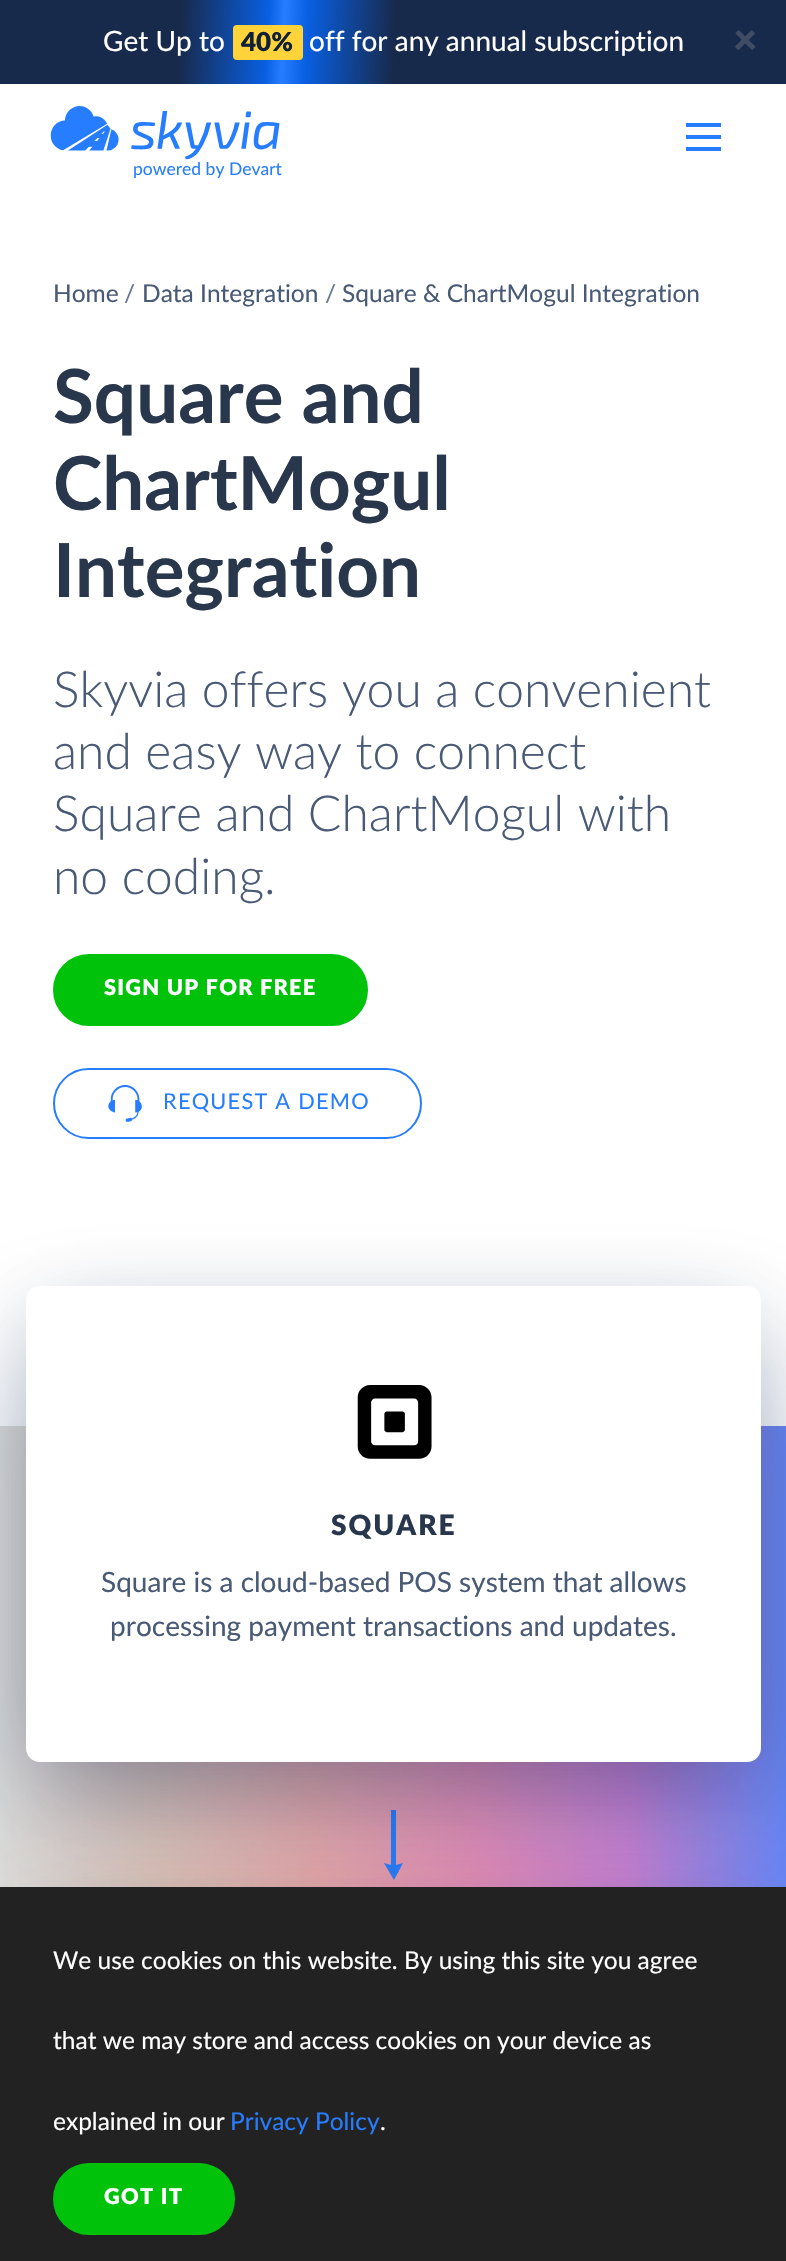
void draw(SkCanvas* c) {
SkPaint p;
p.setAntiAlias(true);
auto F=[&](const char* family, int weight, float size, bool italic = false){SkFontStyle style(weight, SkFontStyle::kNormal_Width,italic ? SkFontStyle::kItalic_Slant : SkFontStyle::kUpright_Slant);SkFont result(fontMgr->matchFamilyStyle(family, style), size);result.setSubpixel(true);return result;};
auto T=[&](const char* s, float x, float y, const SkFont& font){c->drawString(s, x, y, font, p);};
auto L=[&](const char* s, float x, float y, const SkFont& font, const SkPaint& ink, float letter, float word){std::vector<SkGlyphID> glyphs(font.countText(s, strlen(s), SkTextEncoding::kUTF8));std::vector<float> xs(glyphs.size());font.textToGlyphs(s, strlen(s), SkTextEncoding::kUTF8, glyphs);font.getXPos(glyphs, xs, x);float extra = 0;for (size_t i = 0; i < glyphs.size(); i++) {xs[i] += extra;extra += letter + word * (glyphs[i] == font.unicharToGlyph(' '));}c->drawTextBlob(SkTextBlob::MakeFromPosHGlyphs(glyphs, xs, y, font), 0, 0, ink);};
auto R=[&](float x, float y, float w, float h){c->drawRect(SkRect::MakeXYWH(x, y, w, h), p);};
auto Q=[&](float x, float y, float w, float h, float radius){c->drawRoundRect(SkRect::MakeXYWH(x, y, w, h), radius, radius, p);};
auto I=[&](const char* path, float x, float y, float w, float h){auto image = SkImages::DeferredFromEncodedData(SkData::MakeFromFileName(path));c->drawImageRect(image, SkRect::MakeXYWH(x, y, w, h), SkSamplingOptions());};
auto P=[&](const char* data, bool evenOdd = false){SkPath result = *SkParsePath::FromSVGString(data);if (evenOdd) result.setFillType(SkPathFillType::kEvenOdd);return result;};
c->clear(0xffffffff);
{
const SkColor colors[] = {0xff182a4c,0xff095fe1,0xff277dff,0xff095fe1,0xff182a4c};
const float stops[] = {.23,.34,.36,.39,.5};
const SkPoint ends[] = {{-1.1,21}, {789,63}};
p.setShader(SkGradientShader::MakeLinear(ends, colors, stops, 5, SkTileMode::kClamp));
p.setAlpha(255);
}
R(0,0,786,84);
auto f1 = F("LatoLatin",400,28);
p.setShader(nullptr);
p.setColor(0xffffffff);
T("Get Up to",103,51,f1);
p.setColor(0xffffd339);
Q(233,25,70,35,4);
auto f2 = F("LatoLatin",900,26);
p.setColor(0xff0f2039);
T("40%",241,51,f2);
p.setColor(0xffffffff);
T("off for any annual subscription",309,51,f1);
auto f3 = F("LatoLatin",900,42);
p.setColor(0xff404c64);
T("×",733,54,f3);
p.setColor(0xff277dff);
R(686,135,35,4);
R(686,123,35,4);
R(686,147,35,4);
I("1.png",50,106,230,54);
auto f4 = F("LatoLatin",400,17.5);
T("powered by Devart",133,175,f4);
auto f5 = F("LatoLatin",400,24.5);
p.setColor(0xff485a76);
T("Home",53,302,f5);
p.setColor(0xff667892);
T("/",124,302,f5);
p.setColor(0xff485a76);
T("Data Integration",142,302,f5);
p.setColor(0xff667892);
T("/",325,302,f5);
p.setColor(0xff485a76);
T("Square & ChartMogul Integration",342,302,f5);
auto f6 = F("LatoLatin",700,74.5);
p.setColor(0xff29374d);
T("Square and",53,423,f6);
T("ChartMogul",53,510,f6);
T("Integration",53,597,f6);
auto f7 = F("LatoLatin",300,49.75);
p.setColor(0xff485a76);
T("Skyvia offers you a convenient",53,707,f7);
T("and easy way to connect",53,769,f7);
T("Square and ChartMogul with",53,831,f7);
T("no coding.",53,894,f7);
p.setColor(0xff00c20b);
c->drawRoundRect(SkRect::MakeXYWH(54,955,313,70),35,35,p);
p.setStroke(true);
p.setStrokeWidth(2);
c->drawRoundRect(SkRect::MakeXYWH(54,955,313,70),35,35,p);
auto f8 = F("LatoLatin",900,21.75);
p.setStroke(false);
p.setColor(0xffffffff);
L("SIGN UP FOR FREE",104,995,f8,p,1.25,0);
p.setStroke(true);
p.setColor(0xff277dff);
c->drawRoundRect(SkRect::MakeXYWH(54,1069,367,69),34.5,34.5,p);
I("2.png",108,1085,34,37);
auto f9 = F("LatoLatin",400,21.75);
p.setStroke(false);
L("REQUEST A DEMO",163,1109,f9,p,1.25,0);
{
const SkColor colors[] = {0xff6686f6,0xffce81d5,0xffec90b6,0xffeeacaa,0xffe5c8b9,0xffdfdedb};
const float stops[] = {0,.2,.4,.6,.8,1};
const SkPoint ends[] = {{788,1839}, {0,1839}};
p.setShader(SkGradientShader::MakeLinear(ends, colors, stops, 6, SkTileMode::kClamp));
p.setAlpha(255);
}
R(0,1426,786,461);
p.setShader(nullptr);
p.setColor(0xff277dff);
c->drawPath(P("M396 1865l7-2l-9 17l-10-17l7 2v-55h5z"),p);
p.setColor(0x4d0f3671);
p.setMaskFilter(SkMaskFilter::MakeBlur(kNormal_SkBlurStyle, 63));
c->drawRoundRect(SkRect::MakeXYWH(26,1349,735,476),14,14,p);
p.setMaskFilter(nullptr);
p.setColor(0x3b031025);
p.setMaskFilter(SkMaskFilter::MakeBlur(kNormal_SkBlurStyle, 42));
c->drawRect(SkRect::MakeXYWH(47,1328,693,434),p);
p.setMaskFilter(nullptr);
p.setColor(0xffffffff);
Q(26,1286,735,476,14);
I("3.png",357,1385,75,74);
auto f10 = F("LatoLatin",900,28);
p.setColor(0xff29374d);
L("SQUARE",331,1535,f10,p,2,0);
p.setColor(0xff485a76);
T("Square is a cloud-based POS system that allows",101,1592,f1);
T("processing payment transactions and updates.",110,1636,f1);
p.setColor(0x4d0f3671);
p.setMaskFilter(SkMaskFilter::MakeBlur(kNormal_SkBlurStyle, 63));
c->drawRoundRect(SkRect::MakeXYWH(26,1958,735,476),14,14,p);
p.setMaskFilter(nullptr);
p.setColor(0x3b031025);
p.setMaskFilter(SkMaskFilter::MakeBlur(kNormal_SkBlurStyle, 42));
c->drawRect(SkRect::MakeXYWH(47,1937,693,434),p);
p.setMaskFilter(nullptr);
p.setColor(0xff222222);
R(0,1887,786,374);
p.setColor(0xffffffff);
T("We use cookies on this website. By using this site you agree",53,1969,f5);
T("that we may store and access cookies on your device as",53,2049,f5);
T("explained in our",53,2130,f5);
p.setColor(0xff277dff);
T("Privacy Policy",230,2130,f5);
p.setColor(0xffffffff);
T(".",380,2130,f5);
p.setColor(0xff00c20b);
c->drawRoundRect(SkRect::MakeXYWH(54,2164,180,70),35,35,p);
p.setStroke(true);
c->drawRoundRect(SkRect::MakeXYWH(54,2164,180,70),35,35,p);
p.setStroke(false);
p.setColor(0xffffffff);
L("GOT IT",104,2204,f8,p,1.25,0);
}
